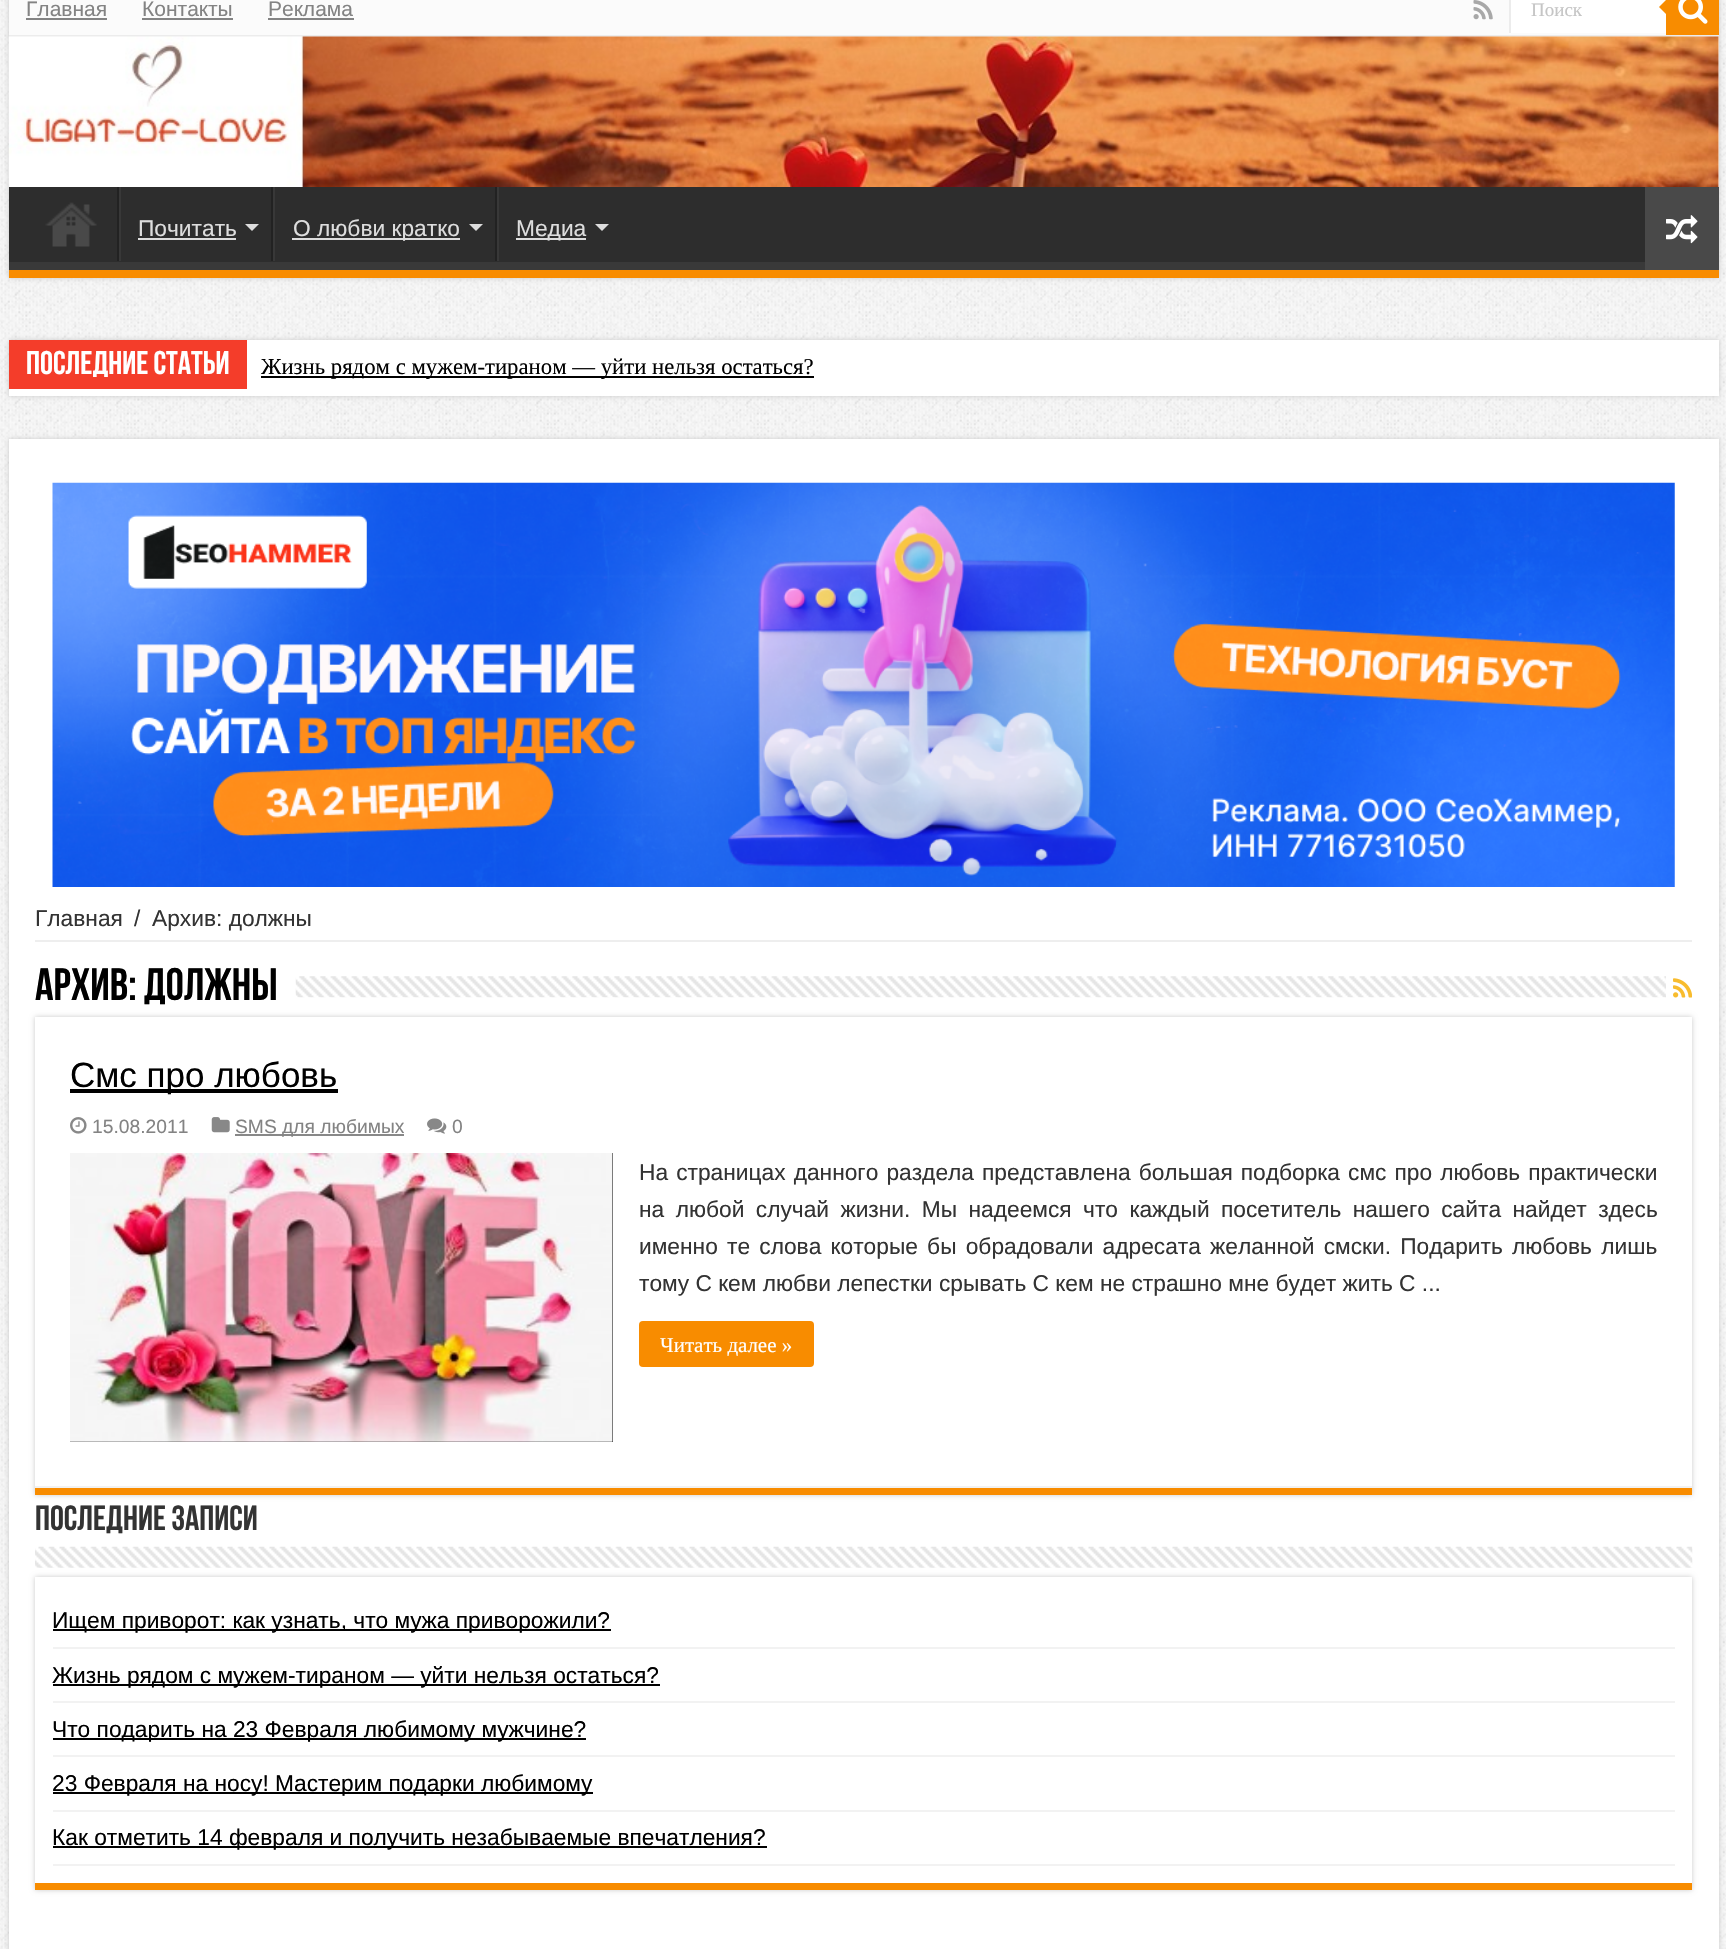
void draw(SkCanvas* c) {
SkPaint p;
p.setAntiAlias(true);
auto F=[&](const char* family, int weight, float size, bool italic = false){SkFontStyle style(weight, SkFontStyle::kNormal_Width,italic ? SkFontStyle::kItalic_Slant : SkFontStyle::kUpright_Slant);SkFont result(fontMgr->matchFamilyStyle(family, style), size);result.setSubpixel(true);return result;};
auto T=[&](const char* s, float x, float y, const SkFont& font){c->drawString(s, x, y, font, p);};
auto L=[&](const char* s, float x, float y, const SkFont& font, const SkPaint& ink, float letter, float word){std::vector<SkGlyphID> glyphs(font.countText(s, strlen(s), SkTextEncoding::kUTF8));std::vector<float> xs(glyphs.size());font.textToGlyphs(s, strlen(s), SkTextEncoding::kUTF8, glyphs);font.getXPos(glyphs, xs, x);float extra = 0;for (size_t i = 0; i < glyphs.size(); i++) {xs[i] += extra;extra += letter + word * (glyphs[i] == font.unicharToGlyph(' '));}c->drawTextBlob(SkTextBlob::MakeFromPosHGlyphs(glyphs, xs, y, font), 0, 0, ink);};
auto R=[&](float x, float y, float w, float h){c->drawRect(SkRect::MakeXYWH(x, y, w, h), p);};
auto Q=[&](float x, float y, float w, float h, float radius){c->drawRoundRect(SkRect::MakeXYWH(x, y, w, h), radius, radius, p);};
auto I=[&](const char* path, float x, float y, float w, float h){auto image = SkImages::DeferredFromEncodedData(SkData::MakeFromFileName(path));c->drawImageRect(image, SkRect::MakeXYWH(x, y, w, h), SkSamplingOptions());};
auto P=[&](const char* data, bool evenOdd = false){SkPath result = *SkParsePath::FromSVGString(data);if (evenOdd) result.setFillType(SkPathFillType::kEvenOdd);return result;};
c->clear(0xffffffff);
I("1.png",0,0,1726,1949);
p.setColor(0xffcacaca);
p.setMaskFilter(SkMaskFilter::MakeBlur(kNormal_SkBlurStyle, 2.5));
c->drawRect(SkRect::MakeXYWH(9,-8,1710,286),p);
p.setMaskFilter(nullptr);
p.setColor(0xffffffff);
R(1718,37,1,150);
p.setColor(0xfffbfbfb);
R(9,0,1657,35);
p.setColor(0xffececec);
R(9,35,1710,2);
auto f1 = F("Liberation Sans",400,21);
p.setColor(0xff838383);
T("Главная",26,16,f1);
R(26,18,81,2);
T("Контакты",142,16,f1);
R(142,18,91,2);
T("Реклама",268,16,f1);
R(268,18,86,2);
I("2.png",1473,0,20,20);
p.setColor(0xffffffff);
R(1511,0,155,33);
p.setColor(0xffececec);
R(1509,0,2,33);
auto f2 = F("Liberation Serif",400,19);
p.setColor(0xffc5c5c5);
T("Поиск",1531,16,f2);
p.setColor(0xfff88c00);
R(1666,0,53,35);
I("3.png",1678,0,30,24);
c->drawPath(P("M1666 0v14l-7-7z"),p);
I("4.png",8,36,1711,151);
p.setColor(0xff2d2d2d);
R(9,187,1636,75);
c->save();
c->clipRect(SkRect::MakeXYWH(9,187,1710,83));
p.setColor(0xff393939);
c->drawPath(P("M-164 14h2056v429h-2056zm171 163h1710c1 0 1 1 1 1v83c0 1 0 1-1 1h-1710c-1 0-2 0-2-1v-83c0 0 1-1 2-1z",true),p);
c->restore();
p.setColor(0xfff88c00);
R(9,270,1710,8);
I("5.png",45,202,52,45);
p.setColor(0xff222222);
R(117,187,2,74);
p.setColor(0xff383838);
R(119,187,2,74);
auto f3 = F("Liberation Sans",400,22.75);
p.setColor(0xffdddddd);
T("Почитать",138,236,f3);
R(138,238,98,2);
c->drawPath(P("M245 224h14l-7 7z"),p);
p.setColor(0xff222222);
R(271,187,2,74);
p.setColor(0xff383838);
R(273,187,2,74);
p.setColor(0xffdddddd);
R(292,238,168,2);
T("О любви кратко",293,236,f3);
c->drawPath(P("M469 224h14l-7 7z"),p);
p.setColor(0xff222222);
R(495,187,2,74);
p.setColor(0xff383838);
R(497,187,2,74);
p.setColor(0xffdddddd);
R(516,238,70,2);
T("Медиа",516,236,f3);
c->drawPath(P("M595 224h14l-7 7z"),p);
p.setColor(0xff494949);
R(1645,187,74,83);
I("6.png",1666,215,32,29);
p.setColor(0xffcacaca);
p.setMaskFilter(SkMaskFilter::MakeBlur(kNormal_SkBlurStyle, 2.5));
c->drawRect(SkRect::MakeXYWH(9,340,1710,56),p);
p.setMaskFilter(nullptr);
p.setColor(0xffffffff);
R(9,340,1710,56);
p.setColor(0xfff43d2a);
R(9,340,238,49);
auto f4 = F("Bebas Neue",700,32.75);
p.setColor(0xffffffff);
T("Последние статьи",26,374,f4);
p.setColor(0xff000000);
R(261,376,553,2);
auto f5 = F("Liberation Serif",400,22.75);
T("Жизнь рядом с мужем-тираном — уйти нельзя остаться?",261,374,f5);
p.setColor(0xffcacaca);
p.setMaskFilter(SkMaskFilter::MakeBlur(kNormal_SkBlurStyle, 2.5));
c->drawRect(SkRect::MakeXYWH(9,439,1710,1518),p);
p.setMaskFilter(nullptr);
p.setColor(0xffffffff);
R(9,439,1710,1510);
I("7.png",52,482,1623,405);
p.setColor(0xffeeeeee);
R(35,940,1657,2);
p.setColor(0xff333333);
T("Главная",35,926,f3);
T("/",134,926,f3);
T("Архив: должны",152,926,f3);
auto f6 = F("Bebas Neue",700,45.5);
p.setColor(0xff000000);
T("Архив: должны",35,1000,f6);
I("8.png",295,976,1371,22);
I("9.png",1673,978,19,20);
p.setColor(0xffcacaca);
p.setMaskFilter(SkMaskFilter::MakeBlur(kNormal_SkBlurStyle, 2.5));
c->drawRect(SkRect::MakeXYWH(35,1017,1657,478),p);
p.setMaskFilter(nullptr);
p.setColor(0xffffffff);
R(35,1017,1657,469);
p.setColor(0xfff88c00);
R(35,1488,1657,7);
p.setColor(0xfff2f2f2);
R(35,1486,1657,2);
p.setColor(0xff000000);
R(70,1089,268,4);
auto f7 = F("Liberation Sans",400,35);
T("Смс про любовь",70,1087,f7);
I("10.png",70,1117,17,17);
auto f8 = F("Liberation Sans",400,19.25);
p.setColor(0xff838383);
T("15.08.2011",92,1133,f8);
I("11.png",211,1117,19,16);
p.setColor(0xff888888);
R(235,1134,169,2);
p.setColor(0xff838383);
T("SMS для любимых",235,1133,f8);
I("12.png",427,1118,20,16);
T("0",452,1133,f8);
p.setColor(0xff000000);
R(70,1153,543,289);
I("13.png",70,1153,543,289);
p.setColor(0xff333333);
L("На страницах данного раздела представлена большая подборка смс про любовь практически",639,1180,f3,p,0,1.75);
L("на любой случай жизни. Мы надеемся что каждый посетитель нашего сайта найдет здесь",639,1217,f3,p,0,5.1);
L("именно те слова которые бы обрадовали адресата желанной смски. Подарить любовь лишь",639,1254,f3,p,0,2.9);
T("тому С кем любви лепестки срывать С кем не страшно мне будет жить С ...",639,1291,f3);
p.setColor(0xfff88c00);
Q(639,1321,175,46,4);
auto f9 = F("Liberation Serif",400,21);
p.setColor(0xffffffff);
T("Читать далее »",660,1352,f9);
auto f10 = F("Bebas Neue",700,35);
p.setColor(0xff333333);
T("Последние записи",35,1530,f10);
I("14.png",35,1546,1658,22);
c->save();
c->clipPath(P("M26 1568h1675v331h-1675zm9 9h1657v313h-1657z",true),true);
p.setColor(0xffcacaca);
p.setMaskFilter(SkMaskFilter::MakeBlur(kNormal_SkBlurStyle, 2.5));
c->drawRect(SkRect::MakeXYWH(35,1577,1657,313),p);
p.setMaskFilter(nullptr);
c->restore();
p.setColor(0xfff88c00);
R(35,1883,1657,7);
p.setColor(0xfff2f2f2);
R(53,1647,1622,2);
p.setColor(0xff000000);
R(53,1629,558,2);
T("Ищем приворот: как узнать, что мужа приворожили?",52,1628,f3);
p.setColor(0xfff2f2f2);
R(53,1701,1622,2);
p.setColor(0xff000000);
R(53,1684,607,2);
T("Жизнь рядом с мужем-тираном — уйти нельзя остаться?",52,1683,f3);
p.setColor(0xfff2f2f2);
R(53,1755,1622,2);
p.setColor(0xff000000);
R(53,1738,533,2);
T("Что подарить на 23 Февраля любимому мужчине?",52,1737,f3);
p.setColor(0xfff2f2f2);
R(53,1810,1622,2);
p.setColor(0xff000000);
R(53,1792,540,2);
T("23 Февраля на носу! Мастерим подарки любимому",52,1791,f3);
p.setColor(0xfff2f2f2);
R(53,1864,1622,2);
p.setColor(0xff000000);
R(53,1846,714,2);
T("Как отметить 14 февраля и получить незабываемые впечатления?",52,1845,f3);
}
